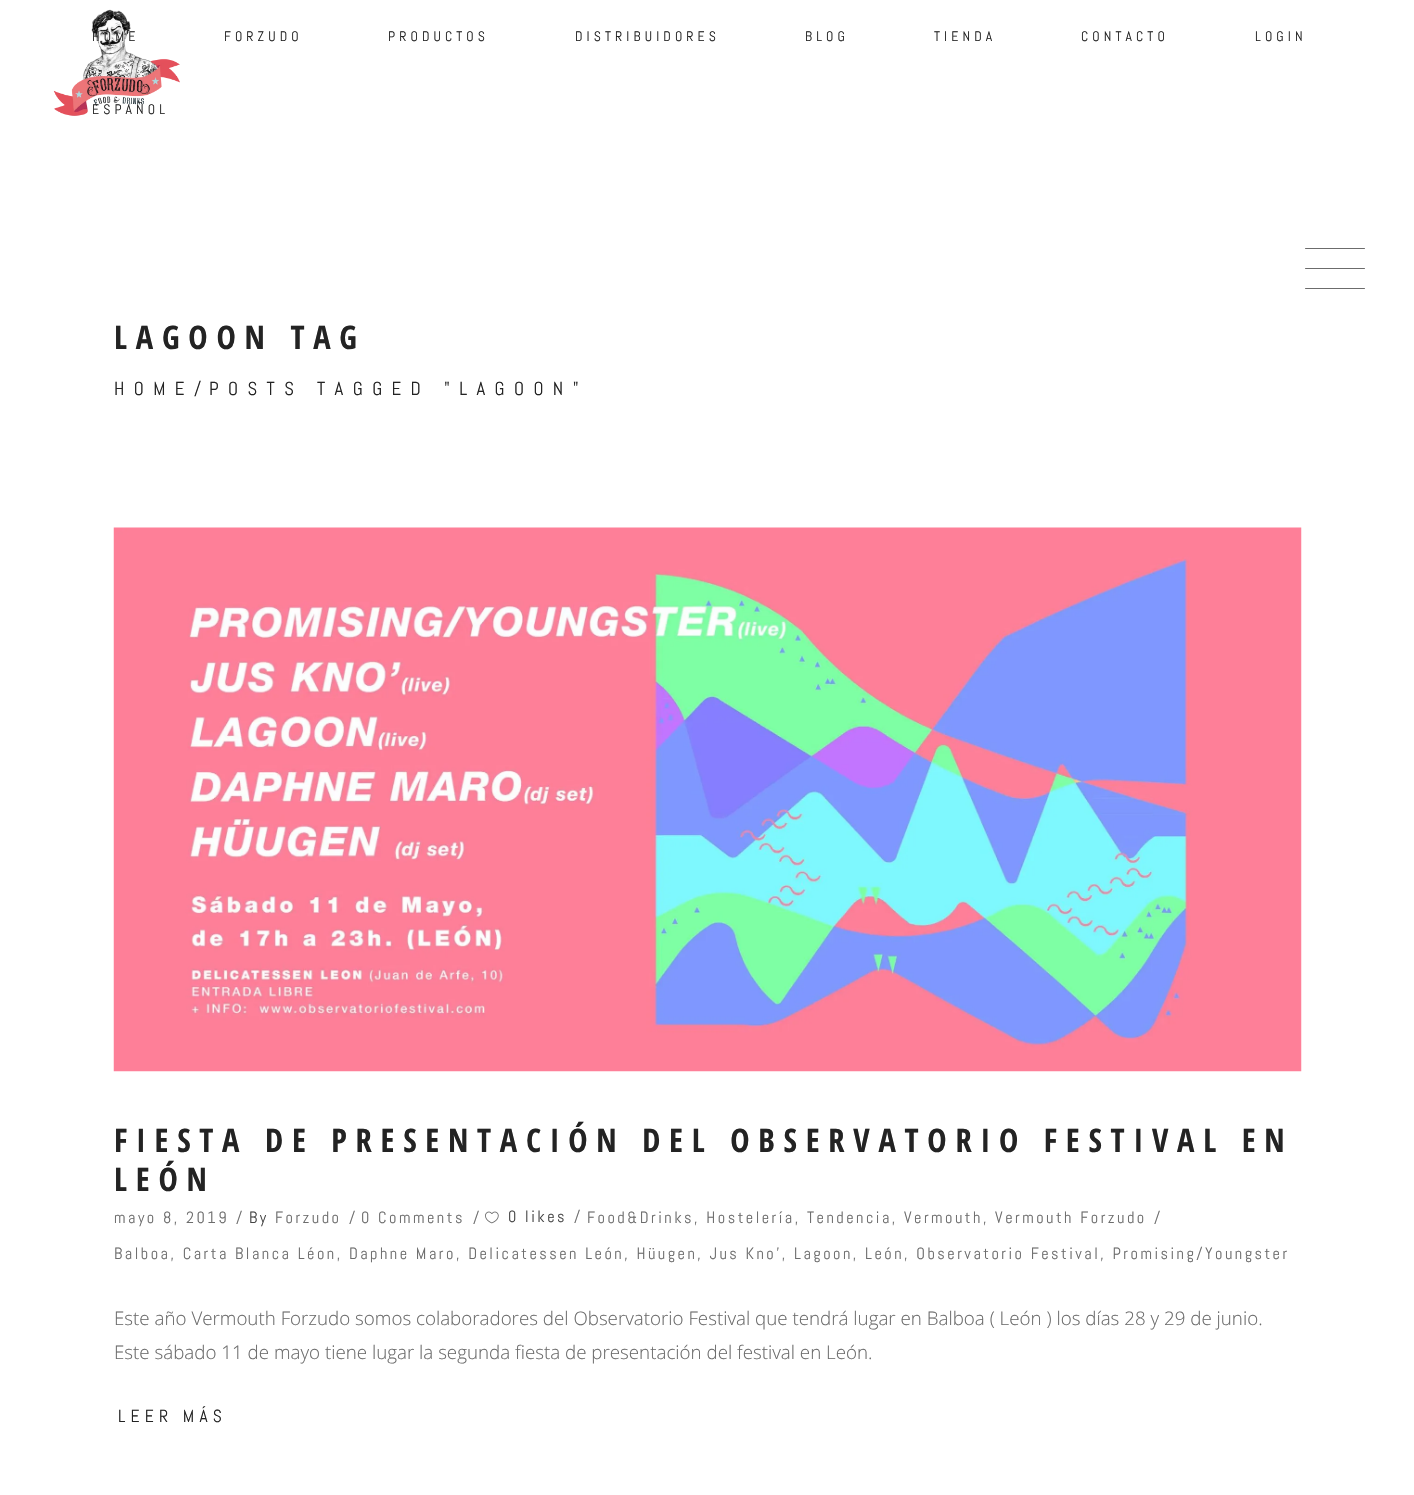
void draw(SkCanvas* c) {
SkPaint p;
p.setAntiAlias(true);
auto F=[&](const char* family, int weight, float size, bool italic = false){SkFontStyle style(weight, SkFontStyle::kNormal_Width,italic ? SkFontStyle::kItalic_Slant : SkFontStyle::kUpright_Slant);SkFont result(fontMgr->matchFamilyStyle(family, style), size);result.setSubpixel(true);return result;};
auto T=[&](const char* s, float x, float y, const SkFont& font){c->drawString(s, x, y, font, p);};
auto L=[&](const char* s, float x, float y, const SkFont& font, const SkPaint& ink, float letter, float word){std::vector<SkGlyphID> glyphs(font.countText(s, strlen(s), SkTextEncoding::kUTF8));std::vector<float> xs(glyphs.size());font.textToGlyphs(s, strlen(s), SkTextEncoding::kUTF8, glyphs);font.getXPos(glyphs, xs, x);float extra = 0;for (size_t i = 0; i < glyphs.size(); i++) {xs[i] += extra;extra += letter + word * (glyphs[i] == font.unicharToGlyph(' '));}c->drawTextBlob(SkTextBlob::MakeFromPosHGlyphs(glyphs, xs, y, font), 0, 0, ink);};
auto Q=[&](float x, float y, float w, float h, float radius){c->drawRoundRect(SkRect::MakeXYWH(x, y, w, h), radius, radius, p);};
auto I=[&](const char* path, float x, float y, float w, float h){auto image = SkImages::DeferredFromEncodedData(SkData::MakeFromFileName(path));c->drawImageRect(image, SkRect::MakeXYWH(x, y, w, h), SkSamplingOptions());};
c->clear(0xffffffff);
I("1.png",53,9,127,107);
p.setColor(0xff6c6c6c);
Q(1305,248,60,1,.5);
Q(1305,268,60,1,.5);
Q(1305,288,60,1,.5);
auto f1 = F("Abel",400,13.75);
p.setColor(0xff232323);
L("HOME",92,41,f1,p,4.1,0);
L("FORZUDO",224,41,f1,p,4.1,0);
L("PRODUCTOS",388,41,f1,p,4.1,0);
L("DISTRIBUIDORES",575,41,f1,p,4.1,0);
L("BLOG",805,41,f1,p,4.1,0);
L("TIENDA",934,41,f1,p,4.1,0);
L("CONTACTO",1081,41,f1,p,4.1,0);
L("LOGIN",1255,41,f1,p,4.1,0);
L("ESPAÑOL",92,114,f1,p,4.1,0);
auto f2 = F("Open Sans Condensed",700,32.5);
L("LAGOON TAG",114,349,f2,p,8.75,0);
auto f3 = F("Abel",400,18.75);
L("HOME/",114,395,f3,p,9.4,0);
L("POSTS TAGGED \"LAGOON\"",209,395,f3,p,9.4,0);
I("2.png",113,527,1189,545);
L("FIESTA DE PRESENTACIÓN DEL OBSERVATORIO FESTIVAL EN",114,1152,f2,p,8.75,0);
L("LEÓN",114,1191,f2,p,8.75,0);
auto f4 = F("Abel",400,16.25);
p.setColor(0xff6c6c6c);
L("mayo 8, 2019",114,1223,f4,p,2.5,0);
L("/",236,1223,f4,p,2.5,0);
p.setColor(0xff444444);
L("By",249,1223,f4,p,2.5,0);
p.setColor(0xff6c6c6c);
L("Forzudo",275,1223,f4,p,2.5,0);
L("/",349,1223,f4,p,2.5,0);
L("0 Comments",361,1223,f4,p,2.5,0);
L("/",473,1223,f4,p,2.5,0);
I("3.png",485,1211,14,13);
p.setColor(0xff444444);
L("0 likes",508,1222,f4,p,2.5,0);
p.setColor(0xff6c6c6c);
L("/",574,1222,f4,p,2.5,0);
L("Food&Drinks, Hostelería, Tendencia, Vermouth, Vermouth Forzudo",587,1223,f4,p,2.5,0);
L("/",1154,1223,f4,p,2.5,0);
L("Balboa, Carta Blanca Léon, Daphne Maro, Delicatessen León, Hüugen, Jus Kno’, Lagoon, León, Observatorio Festival, Promising/Youngster",114,1259,f4,p,2.5,0);
auto f5 = F("Open Sans",300,18.75);
T("Este año Vermouth Forzudo somos colaboradores del Observatorio Festival que tendrá lugar en Balboa ( León ) los días 28 y 29 de junio.",114,1325,f5);
T("Este sábado 11 de mayo tiene lugar la segunda fiesta de presentación del festival en León.",114,1359,f5);
auto f6 = F("Abel",400,17.5);
p.setColor(0xff232323);
L("LEER MÁS",118,1422,f6,p,5.25,0);
}
